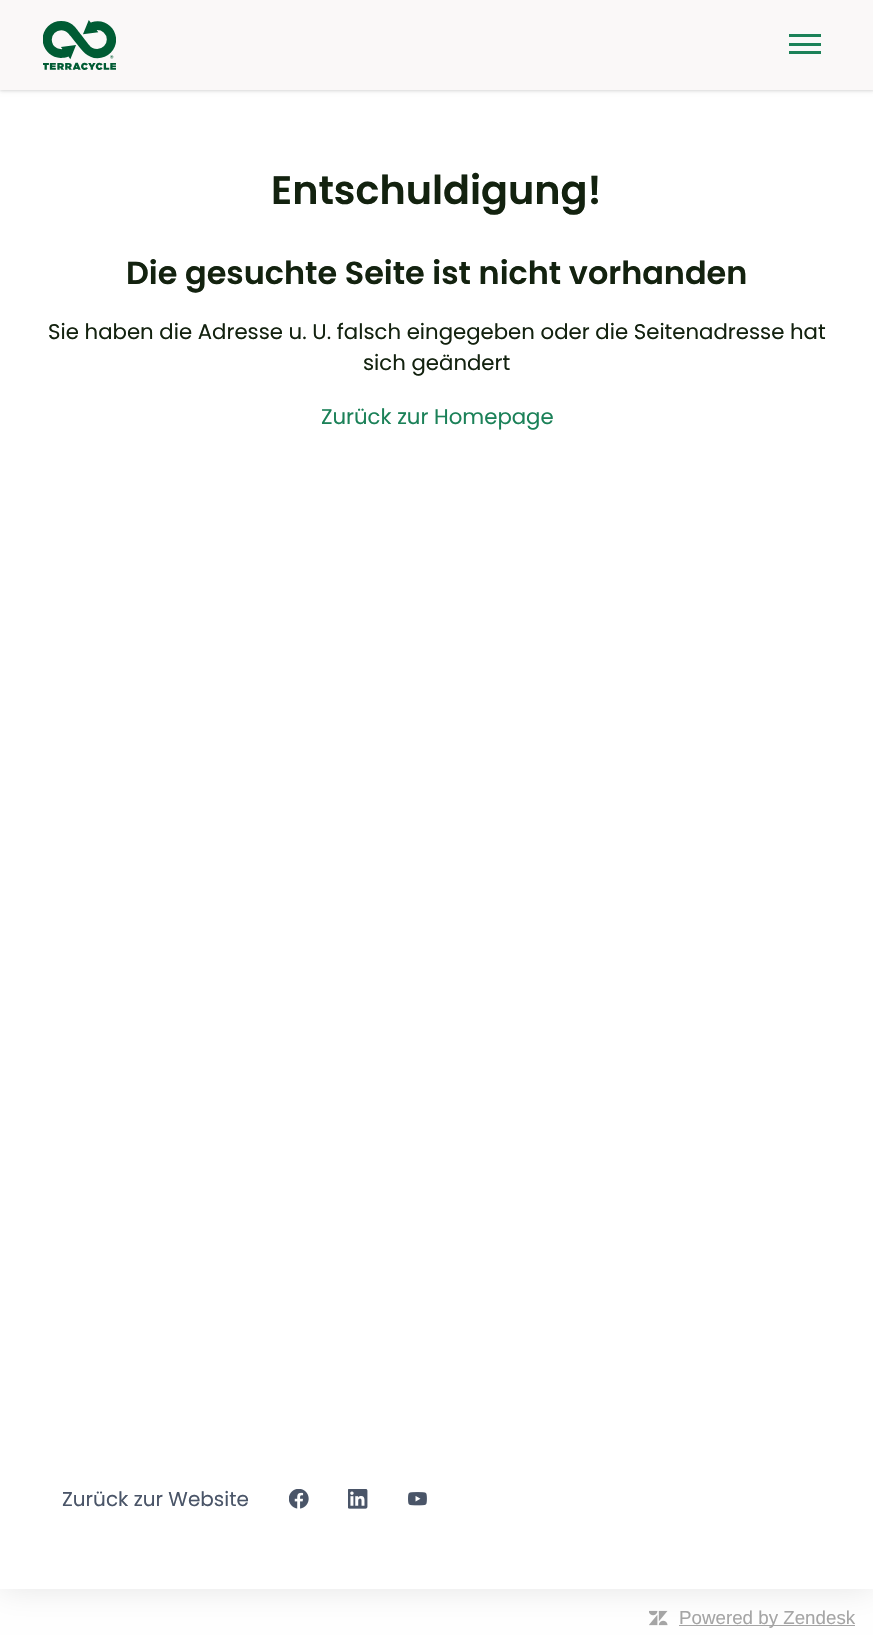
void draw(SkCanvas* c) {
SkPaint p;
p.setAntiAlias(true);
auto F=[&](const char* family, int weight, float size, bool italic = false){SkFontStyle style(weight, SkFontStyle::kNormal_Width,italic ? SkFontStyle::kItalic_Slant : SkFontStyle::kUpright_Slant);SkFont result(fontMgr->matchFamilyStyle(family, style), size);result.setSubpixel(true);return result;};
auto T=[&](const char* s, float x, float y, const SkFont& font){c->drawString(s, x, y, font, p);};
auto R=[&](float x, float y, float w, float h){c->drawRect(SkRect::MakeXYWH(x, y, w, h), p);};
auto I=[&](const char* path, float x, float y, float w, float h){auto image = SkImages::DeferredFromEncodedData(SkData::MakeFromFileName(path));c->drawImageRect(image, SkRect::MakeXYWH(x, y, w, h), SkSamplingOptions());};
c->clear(0xffffffff);
p.setColor(0xffa5a5a5);
R(679,1625,176,1);
p.setColor(0x1a000000);
p.setMaskFilter(SkMaskFilter::MakeBlur(kNormal_SkBlurStyle, 15.5));
c->drawRect(SkRect::MakeXYWH(0,0,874,1589),p);
p.setMaskFilter(nullptr);
p.setColor(0xffffffff);
R(0,90,873,1499);
p.setColor(0x0f000000);
p.setMaskFilter(SkMaskFilter::MakeBlur(kNormal_SkBlurStyle, 1));
c->drawRect(SkRect::MakeXYWH(0,1,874,90),p);
p.setMaskFilter(nullptr);
p.setColor(0x1a000000);
p.setMaskFilter(SkMaskFilter::MakeBlur(kNormal_SkBlurStyle, 2));
c->drawRect(SkRect::MakeXYWH(0,1,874,90),p);
p.setMaskFilter(nullptr);
p.setColor(0xfffaf8f8);
R(0,0,873,90);
I("1.png",43,20,73,50);
p.setColor(0xff1b8158);
R(789,43,32,3);
R(789,34,32,3);
R(789,51,32,3);
auto f1 = F("Poppins",600,39.75);
p.setColor(0xff13220f);
T("Entschuldigung!",271,204,f1);
auto f2 = F("Poppins",600,31.9);
T("Die gesuchte Seite ist nicht vorhanden",126,284,f2);
auto f3 = F("Poppins",400,21.25);
T("Sie haben die Adresse u. U. falsch eingegeben oder die Seitenadresse hat",48,339,f3);
T("sich geändert",363,370,f3);
p.setColor(0xff1b8158);
T("Zurück zur Homepage",321,424,f3);
auto f4 = F("Poppins",400,20);
p.setColor(0xff4a5568);
T("Zurück zur Website",62,1506,f4);
I("2.png",289,1489,20,20);
I("3.png",348,1489,20,20);
I("4.png",408,1492,19,14);
I("5.png",649,1610,19,16);
auto f5 = F("Liberation Sans",400,18.75);
p.setColor(0xffa5a5a5);
T("Powered by Zendesk",679,1624,f5);
}
